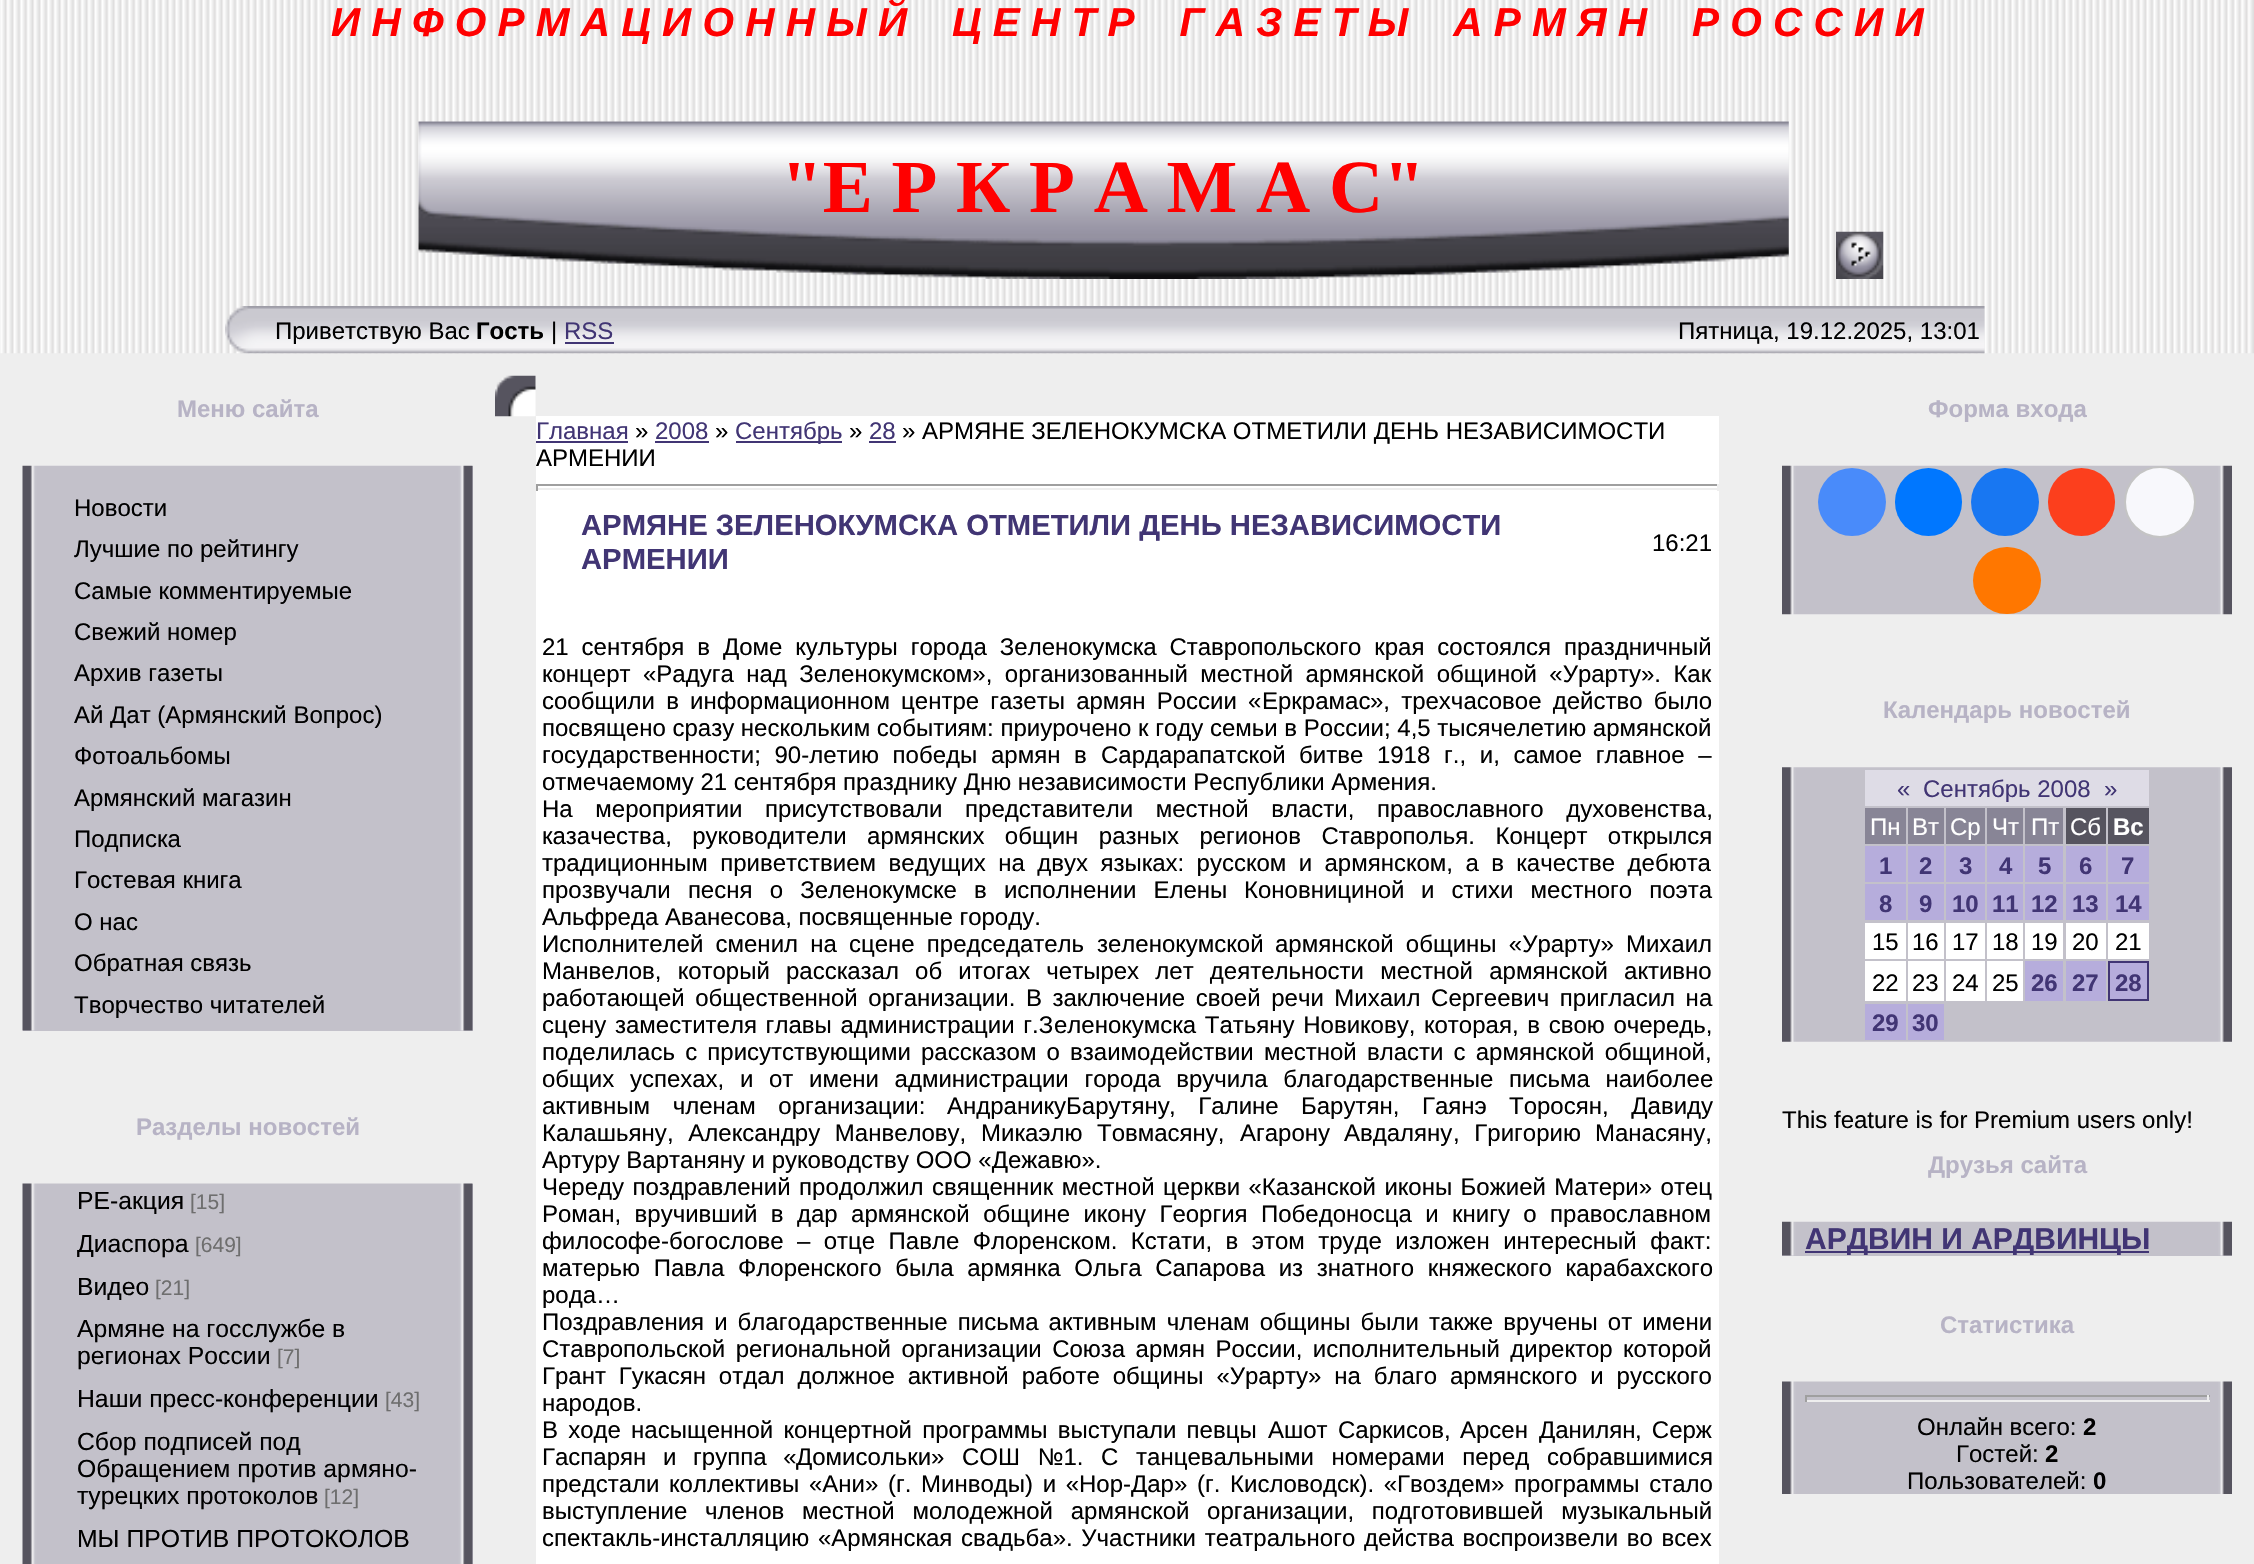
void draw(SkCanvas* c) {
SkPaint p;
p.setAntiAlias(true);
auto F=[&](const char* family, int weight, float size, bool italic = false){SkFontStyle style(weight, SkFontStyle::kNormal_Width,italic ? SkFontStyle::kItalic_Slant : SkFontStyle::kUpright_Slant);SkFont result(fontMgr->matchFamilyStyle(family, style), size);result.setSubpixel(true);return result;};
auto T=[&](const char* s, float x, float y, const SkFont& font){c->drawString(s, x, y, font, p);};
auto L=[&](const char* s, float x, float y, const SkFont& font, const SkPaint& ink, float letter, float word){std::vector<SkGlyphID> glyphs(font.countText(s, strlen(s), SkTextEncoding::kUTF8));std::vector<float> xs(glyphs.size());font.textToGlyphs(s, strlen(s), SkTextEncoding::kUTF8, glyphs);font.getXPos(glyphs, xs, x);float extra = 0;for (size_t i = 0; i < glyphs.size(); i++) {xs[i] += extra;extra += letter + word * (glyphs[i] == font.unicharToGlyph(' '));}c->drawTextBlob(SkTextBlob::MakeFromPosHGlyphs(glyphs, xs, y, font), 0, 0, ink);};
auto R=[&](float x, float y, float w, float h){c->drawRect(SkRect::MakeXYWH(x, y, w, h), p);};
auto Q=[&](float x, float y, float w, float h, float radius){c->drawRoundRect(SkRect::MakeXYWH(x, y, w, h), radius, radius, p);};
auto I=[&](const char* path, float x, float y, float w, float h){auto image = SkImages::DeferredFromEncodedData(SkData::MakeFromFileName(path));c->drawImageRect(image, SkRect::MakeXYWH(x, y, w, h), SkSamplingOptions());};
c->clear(0xffeeeeee);
I("1.png",0,0,2254,354);
auto f1 = F("Liberation Sans",700,40.5,true);
p.setColor(0xffff0000);
T("И Н Ф О Р М А Ц И О Н Н Ы Й    Ц Е Н Т Р    Г А З Е Т Ы    А Р М Я Н    Р О С С И И",331,36,f1);
I("2.png",418,121,1371,158);
auto f2 = F("Liberation Serif",700,75);
T("\"Е Р К Р А М А С\"",781,212,f2);
I("3.png",1836,231,48,48);
I("4.png",225,306,45,48);
I("5.png",270,306,1715,48);
auto f3 = F("Liberation Sans",400,24);
p.setColor(0xff000000);
T("Приветствую Вас",275,339,f3);
auto f4 = F("Liberation Sans",700,24);
T("Гость",476,339,f4);
T("|",551,339,f3);
p.setColor(0xff413574);
T("RSS",564,339,f3);
R(565,342,49,2);
p.setColor(0xff000000);
T("Пятница, 19.12.2025, 13:01",1678,339,f3);
p.setColor(0xffb7b3c5);
T("Меню сайта",177,417,f4);
p.setColor(0xffc3c1ca);
R(23,466,450,565);
I("6.png",22,465,451,566);
p.setColor(0xff000000);
T("Новости",74,516,f3);
T("Лучшие по рейтингу",74,557,f3);
T("Самые комментируемые",74,599,f3);
T("Свежий номер",74,640,f3);
T("Архив газеты",74,681,f3);
T("Ай Дат (Армянский Вопрос)",74,723,f3);
T("Фотоальбомы",74,764,f3);
T("Армянский магазин",74,806,f3);
T("Подписка",74,847,f3);
T("Гостевая книга",74,888,f3);
T("О нас",74,930,f3);
T("Обратная связь",74,971,f3);
T("Творчество читателей",74,1013,f3);
p.setColor(0xffb7b3c5);
T("Разделы новостей",136,1135,f4);
p.setColor(0xffc3c1ca);
R(472,1184,1,380);
I("7.png",22,1183,451,381);
auto f5 = F("Liberation Sans",400,24.75);
p.setColor(0xff000000);
T("РЕ-акция",77,1209,f5);
auto f6 = F("Liberation Sans",400,21);
p.setColor(0xff6e6e6e);
T("[15]",190,1209,f6);
p.setColor(0xff000000);
T("Диаспора",77,1252,f5);
p.setColor(0xff6e6e6e);
T("[649]",195,1252,f6);
p.setColor(0xff000000);
T("Видео",77,1295,f5);
p.setColor(0xff6e6e6e);
T("[21]",155,1295,f6);
p.setColor(0xff000000);
T("Армяне на госслужбе в",77,1337,f5);
T("регионах России",77,1364,f5);
p.setColor(0xff6e6e6e);
T("[7]",277,1364,f6);
p.setColor(0xff000000);
T("Наши пресс-конференции",77,1407,f5);
p.setColor(0xff6e6e6e);
T("[43]",385,1407,f6);
p.setColor(0xff000000);
T("Сбор подписей под",77,1450,f5);
T("Обращением против армяно-",77,1477,f5);
T("турецких протоколов",77,1504,f5);
p.setColor(0xff6e6e6e);
T("[12]",324,1504,f6);
p.setColor(0xff000000);
T("МЫ ПРОТИВ ПРОТОКОЛОВ",77,1547,f5);
I("8.png",495,375,41,42);
p.setColor(0xffffffff);
R(536,416,1183,1148);
p.setColor(0xff413574);
T("Главная",536,439,f3);
R(536,441,92,2);
p.setColor(0xff000000);
T("»",635,439,f3);
p.setColor(0xff413574);
T("2008",655,439,f3);
R(655,441,54,2);
p.setColor(0xff000000);
T("»",715,439,f3);
p.setColor(0xff413574);
R(736,441,106,2);
T("Сентябрь",735,439,f3);
p.setColor(0xff000000);
T("»",849,439,f3);
p.setColor(0xff413574);
T("28",869,439,f3);
R(869,441,27,2);
p.setColor(0xff000000);
T("» АРМЯНЕ ЗЕЛЕНОКУМСКА ОТМЕТИЛИ ДЕНЬ НЕЗАВИСИМОСТИ",902,439,f3);
T("АРМЕНИИ",536,466,f3);
p.setColor(0xff9f9f9f);
R(536,484,1183,2);
p.setColor(0xffeeeeee);
R(1717,484,2,7);
R(536,488,1183,2);
p.setColor(0xff9f9f9f);
R(536,484,2,7);
auto f7 = F("Liberation Sans",700,29.25);
p.setColor(0xff413574);
T("АРМЯНЕ ЗЕЛЕНОКУМСКА ОТМЕТИЛИ ДЕНЬ НЕЗАВИСИМОСТИ",581,535,f7);
T("АРМЕНИИ",581,569,f7);
p.setColor(0xff000000);
T("16:21",1652,551,f3);
L("21 сентября в Доме культуры города Зеленокумска Ставропольского края состоялся праздничный",542,655,f3,p,0,6.25);
L("концерт «Радуга над Зеленокумском», организованный местной армянской общиной «Урарту». Как",542,682,f3,p,0,5.75);
L("сообщили в информационном центре газеты армян России «",542,709,f3,p,0,4.5);
T("Еркрамас",1262,709,f3);
L("», трехчасовое действо было",1370,709,f3,p,0,4.5);
T("посвящено сразу нескольким событиям: приурочено к году семьи в России; 4,5 тысячелетию армянской",542,736,f3);
L("государственности; 90-летию победы армян в",542,763,f3,p,0,7);
T("Сардарапатской",1101,763,f3);
L("битве 1918 г., и, самое главное –",1299,763,f3,p,0,7);
T("отмечаемому 21 сентября празднику Дню независимости Республики Армения.",542,790,f3);
L("На мероприятии присутствовали представители местной власти, православного духовенства,",542,817,f3,p,0,16);
L("казачества, руководители армянских общин разных регионов Ставрополья. Концерт открылся",542,844,f3,p,0,13.75);
L("традиционным приветствием ведущих на двух языках: русском и армянском, а в качестве дебюта",542,871,f3,p,0,5.75);
L("прозвучали песня о Зеленокумске в исполнении Елены",542,898,f3,p,0,10.5);
T("Коновнициной",1244,898,f3);
L("и стихи местного поэта",1421,898,f3,p,0,10.5);
T("Альфреда Аванесова, посвященные городу.",542,925,f3);
L("Исполнителей сменил на сцене председатель",542,952,f3,p,0,5.5);
T("зеленокумской",1097,952,f3);
L("армянской общины «Урарту» Михаил",1275,952,f3,p,0,5.5);
L("Манвелов, который рассказал об итогах четырех лет деятельности местной армянской активно",542,979,f3,p,0,9.5);
L("работающей общественной организации. В заключение своей речи Михаил Сергеевич пригласил на",542,1006,f3,p,0,3.9);
L("сцену заместителя главы администрации г",542,1033,f3,p,0,2);
T(".З",1032,1033,f3);
L("еленокумска Татьяну Новикову, которая, в свою очередь,",1054,1033,f3,p,0,2);
L("поделилась с присутствующими рассказом о взаимодействии местной власти с армянской общиной,",542,1060,f3,p,0,3.5);
L("общих успехах, и от имени администрации города вручила благодарственные письма наиболее",542,1087,f3,p,0,9);
L("активным членам организации:",542,1114,f3,p,0,16);
T("АндраникуБарутяну",947,1114,f3);
L(", Галине",1169,1114,f3,p,0,16);
T("Барутян,",1301,1114,f3);
T("Гаянэ",1422,1114,f3);
L("Торосян, Давиду",1509,1114,f3,p,0,16);
T("Калашьяну",542,1141,f3);
L(", Александру Манвелову,",667,1141,f3,p,0,8);
T("Микаэлю",981,1141,f3);
T("Товмасяну,",1097,1141,f3);
T("Агарону",1240,1141,f3);
T("Авдаляну",1344,1141,f3);
L(", Григорию",1453,1141,f3,p,0,8);
T("Манасяну,",1595,1141,f3);
T("Артуру Вартаняну и руководств",542,1168,f3);
T("у ООО «Дежавю».",897,1168,f3);
L("Череду поздравлений продолжил священник местной церкви «Казанской иконы Божией Матери» отец",542,1195,f3,p,0,1.75);
L("Роман, вручивший в дар армянской общине икону Георгия Победоносца и книгу о православном",542,1222,f3,p,0,6.75);
L("философе-богослове – отце Павле Флоренском. Кстати, в этом труде изложен интересный факт:",542,1249,f3,p,0,6.75);
L("матерью Павла Флоренского была армянка Ольга Сапарова из знатного княжеского карабахского",542,1276,f3,p,0,7);
T("рода…",542,1303,f3);
L("Поздравления и благодарственные письма активным членам общины были также вручены от имени",542,1330,f3,p,0,3.4);
L("Ставропольской региональной организации Союза армян России, исполнительный директор которой",542,1357,f3,p,0,3.75);
L("Грант Гукасян отдал должное активной работе общины «Урарту» на благо армянского и русского",542,1384,f3,p,0,6.25);
T("народов.",542,1411,f3);
L("В ходе насыщенной концертной программы выступали певцы",542,1438,f3,p,0,3.5);
T("Ашот",1268,1438,f3);
T("Саркисов,",1338,1438,f3);
T("Арсен",1460,1438,f3);
T("Данилян",1539,1438,f3);
L(", Серж",1635,1438,f3,p,0,3.5);
T("Гаспарян",542,1465,f3);
L("и группа «",663,1465,f3,p,0,10);
T("Домисольки",796,1465,f3);
L("» СОШ №1. С танцевальными номерами перед собравшимися",931,1465,f3,p,0,11);
L("предстали коллективы «Ани» (г. Минводы) и «",542,1492,f3,p,0,3);
T("Нор-Дар",1079,1492,f3);
L("» (г. Кисловодск). «Гвоздем» программы стало",1174,1492,f3,p,0,3);
L("выступление членов местной молодежной армянской организации, подготовившей музыкальный",542,1519,f3,p,0,11);
L("спектакль-инсталляцию «Армянская свадьба». Участники театрального действа воспроизвели во всех",542,1546,f3,p,0,2);
p.setColor(0xffb7b3c5);
T("Форма входа",1928,417,f4);
I("9.png",1782,465,450,150);
p.setColor(0xff498bfa);
c->drawCircle(1852,502,34,p);
p.setColor(0xff0077ff);
Q(1895,468,67,68,33.5);
p.setColor(0xff1877f2);
c->drawCircle(2005,502,34,p);
p.setColor(0xfffc3f1d);
Q(2048,468,67,68,33.5);
p.setColor(0xfff8f8fc);
c->drawCircle(2160,502,35,p);
p.setStroke(true);
p.setStrokeWidth(2);
p.setColor(0xffc4c4c4);
c->drawCircle(2160,502,35,p);
p.setStroke(false);
p.setColor(0xffff7700);
Q(1973,547,68,67,33.5);
p.setColor(0xffb7b3c5);
T("Календарь новостей",1883,718,f4);
I("10.png",1782,767,450,275);
p.setColor(0xffdedce6);
R(1865,770,284,36);
p.setColor(0xff413574);
T("«",1897,797,f3);
T("Сентябрь 2008",1923,797,f3);
T("»",2104,797,f3);
p.setColor(0xff888596);
R(1865,808,41,36);
p.setColor(0xffffffff);
T("Пн",1870,835,f3);
p.setColor(0xff888596);
R(1908,808,36,36);
p.setColor(0xffffffff);
T("Вт",1912,835,f3);
p.setColor(0xff888596);
R(1946,808,39,36);
p.setColor(0xffffffff);
T("Ср",1950,835,f3);
p.setColor(0xff888596);
R(1987,808,36,36);
p.setColor(0xffffffff);
T("Чт",1992,835,f3);
p.setColor(0xff888596);
R(2025,808,38,36);
p.setColor(0xffffffff);
T("Пт",2031,835,f3);
p.setColor(0xff56545f);
R(2066,808,40,36);
p.setColor(0xffffffff);
T("Сб",2070,835,f3);
p.setColor(0xff56545f);
R(2108,808,41,36);
p.setColor(0xffffffff);
T("Вс",2113,835,f4);
p.setColor(0xffb6addc);
R(1865,846,41,36);
p.setColor(0xff413574);
T("1",1879,874,f4);
p.setColor(0xffb6addc);
R(1908,846,36,36);
p.setColor(0xff413574);
T("2",1919,874,f4);
p.setColor(0xffb6addc);
R(1946,846,39,36);
p.setColor(0xff413574);
T("3",1959,874,f4);
p.setColor(0xffb6addc);
R(1987,846,36,36);
p.setColor(0xff413574);
T("4",1999,874,f4);
p.setColor(0xffb6addc);
R(2025,846,38,36);
p.setColor(0xff413574);
T("5",2038,874,f4);
p.setColor(0xffb6addc);
R(2066,846,40,36);
p.setColor(0xff413574);
T("6",2079,874,f4);
p.setColor(0xffb6addc);
R(2108,846,41,36);
p.setColor(0xff413574);
T("7",2121,874,f4);
p.setColor(0xffb6addc);
R(1865,884,41,36);
p.setColor(0xff413574);
T("8",1879,912,f4);
p.setColor(0xffb6addc);
R(1908,884,36,36);
p.setColor(0xff413574);
T("9",1919,912,f4);
p.setColor(0xffb6addc);
R(1946,884,39,36);
p.setColor(0xff413574);
T("10",1952,912,f4);
p.setColor(0xffb6addc);
R(1987,884,36,36);
p.setColor(0xff413574);
T("11",1992,912,f4);
p.setColor(0xffb6addc);
R(2025,884,38,36);
p.setColor(0xff413574);
T("12",2031,912,f4);
p.setColor(0xffb6addc);
R(2066,884,40,36);
p.setColor(0xff413574);
T("13",2072,912,f4);
p.setColor(0xffb6addc);
R(2108,884,41,36);
p.setColor(0xff413574);
T("14",2115,912,f4);
p.setColor(0xffffffff);
R(1865,923,41,36);
p.setColor(0xff000000);
T("15",1872,950,f3);
p.setColor(0xffffffff);
R(1908,923,36,36);
p.setColor(0xff000000);
T("16",1912,950,f3);
p.setColor(0xffffffff);
R(1946,923,39,36);
p.setColor(0xff000000);
T("17",1952,950,f3);
p.setColor(0xffffffff);
R(1987,923,36,36);
p.setColor(0xff000000);
T("18",1992,950,f3);
p.setColor(0xffffffff);
R(2025,923,38,36);
p.setColor(0xff000000);
T("19",2031,950,f3);
p.setColor(0xffffffff);
R(2066,923,40,36);
p.setColor(0xff000000);
T("20",2072,950,f3);
p.setColor(0xffffffff);
R(2108,923,41,36);
p.setColor(0xff000000);
T("21",2115,950,f3);
p.setColor(0xffffffff);
R(1865,961,41,40);
p.setColor(0xff000000);
T("22",1872,991,f3);
p.setColor(0xffffffff);
R(1908,961,36,40);
p.setColor(0xff000000);
T("23",1912,991,f3);
p.setColor(0xffffffff);
R(1946,961,39,40);
p.setColor(0xff000000);
T("24",1952,991,f3);
p.setColor(0xffffffff);
R(1987,961,36,40);
p.setColor(0xff000000);
T("25",1992,991,f3);
p.setColor(0xffb6addc);
R(2025,961,38,40);
p.setColor(0xff413574);
T("26",2031,991,f4);
p.setColor(0xffb6addc);
R(2066,961,40,40);
p.setColor(0xff413574);
T("27",2072,991,f4);
p.setColor(0xffb6addc);
c->drawRect(SkRect::MakeXYWH(2109,962,39,38),p);
p.setStroke(true);
p.setColor(0xff413574);
c->drawRect(SkRect::MakeXYWH(2109,962,39,38),p);
p.setStroke(false);
T("28",2115,991,f4);
p.setColor(0xffb6addc);
R(1865,1004,41,36);
p.setColor(0xff413574);
T("29",1872,1031,f4);
p.setColor(0xffb6addc);
R(1908,1004,36,36);
p.setColor(0xff413574);
T("30",1912,1031,f4);
p.setColor(0xff000000);
T("This feature is for Premium users only!",1782,1128,f3);
p.setColor(0xffb7b3c5);
T("Друзья сайта",1928,1173,f4);
p.setColor(0xffc3c1ca);
R(1782,1255,450,1);
I("11.png",1782,1221,450,35);
p.setColor(0xff413574);
R(1805,1251,344,2);
auto f8 = F("Liberation Sans",700,30);
T("АРДВИН И АРДВИНЦЫ",1805,1249,f8);
p.setColor(0xffb7b3c5);
T("Статистика",1940,1333,f4);
I("12.png",1782,1381,450,113);
p.setColor(0xff9f9f9f);
R(1805,1395,405,2);
p.setColor(0xffeeeeee);
R(2207,1395,2,7);
R(1805,1400,405,2);
p.setColor(0xff9f9f9f);
R(1805,1395,2,7);
p.setColor(0xff000000);
T("Онлайн всего:",1917,1435,f3);
T("2",2083,1435,f4);
T("Гостей:",1956,1462,f3);
T("2",2045,1462,f4);
T("Пользователей:",1907,1489,f3);
T("0",2093,1489,f4);
}
